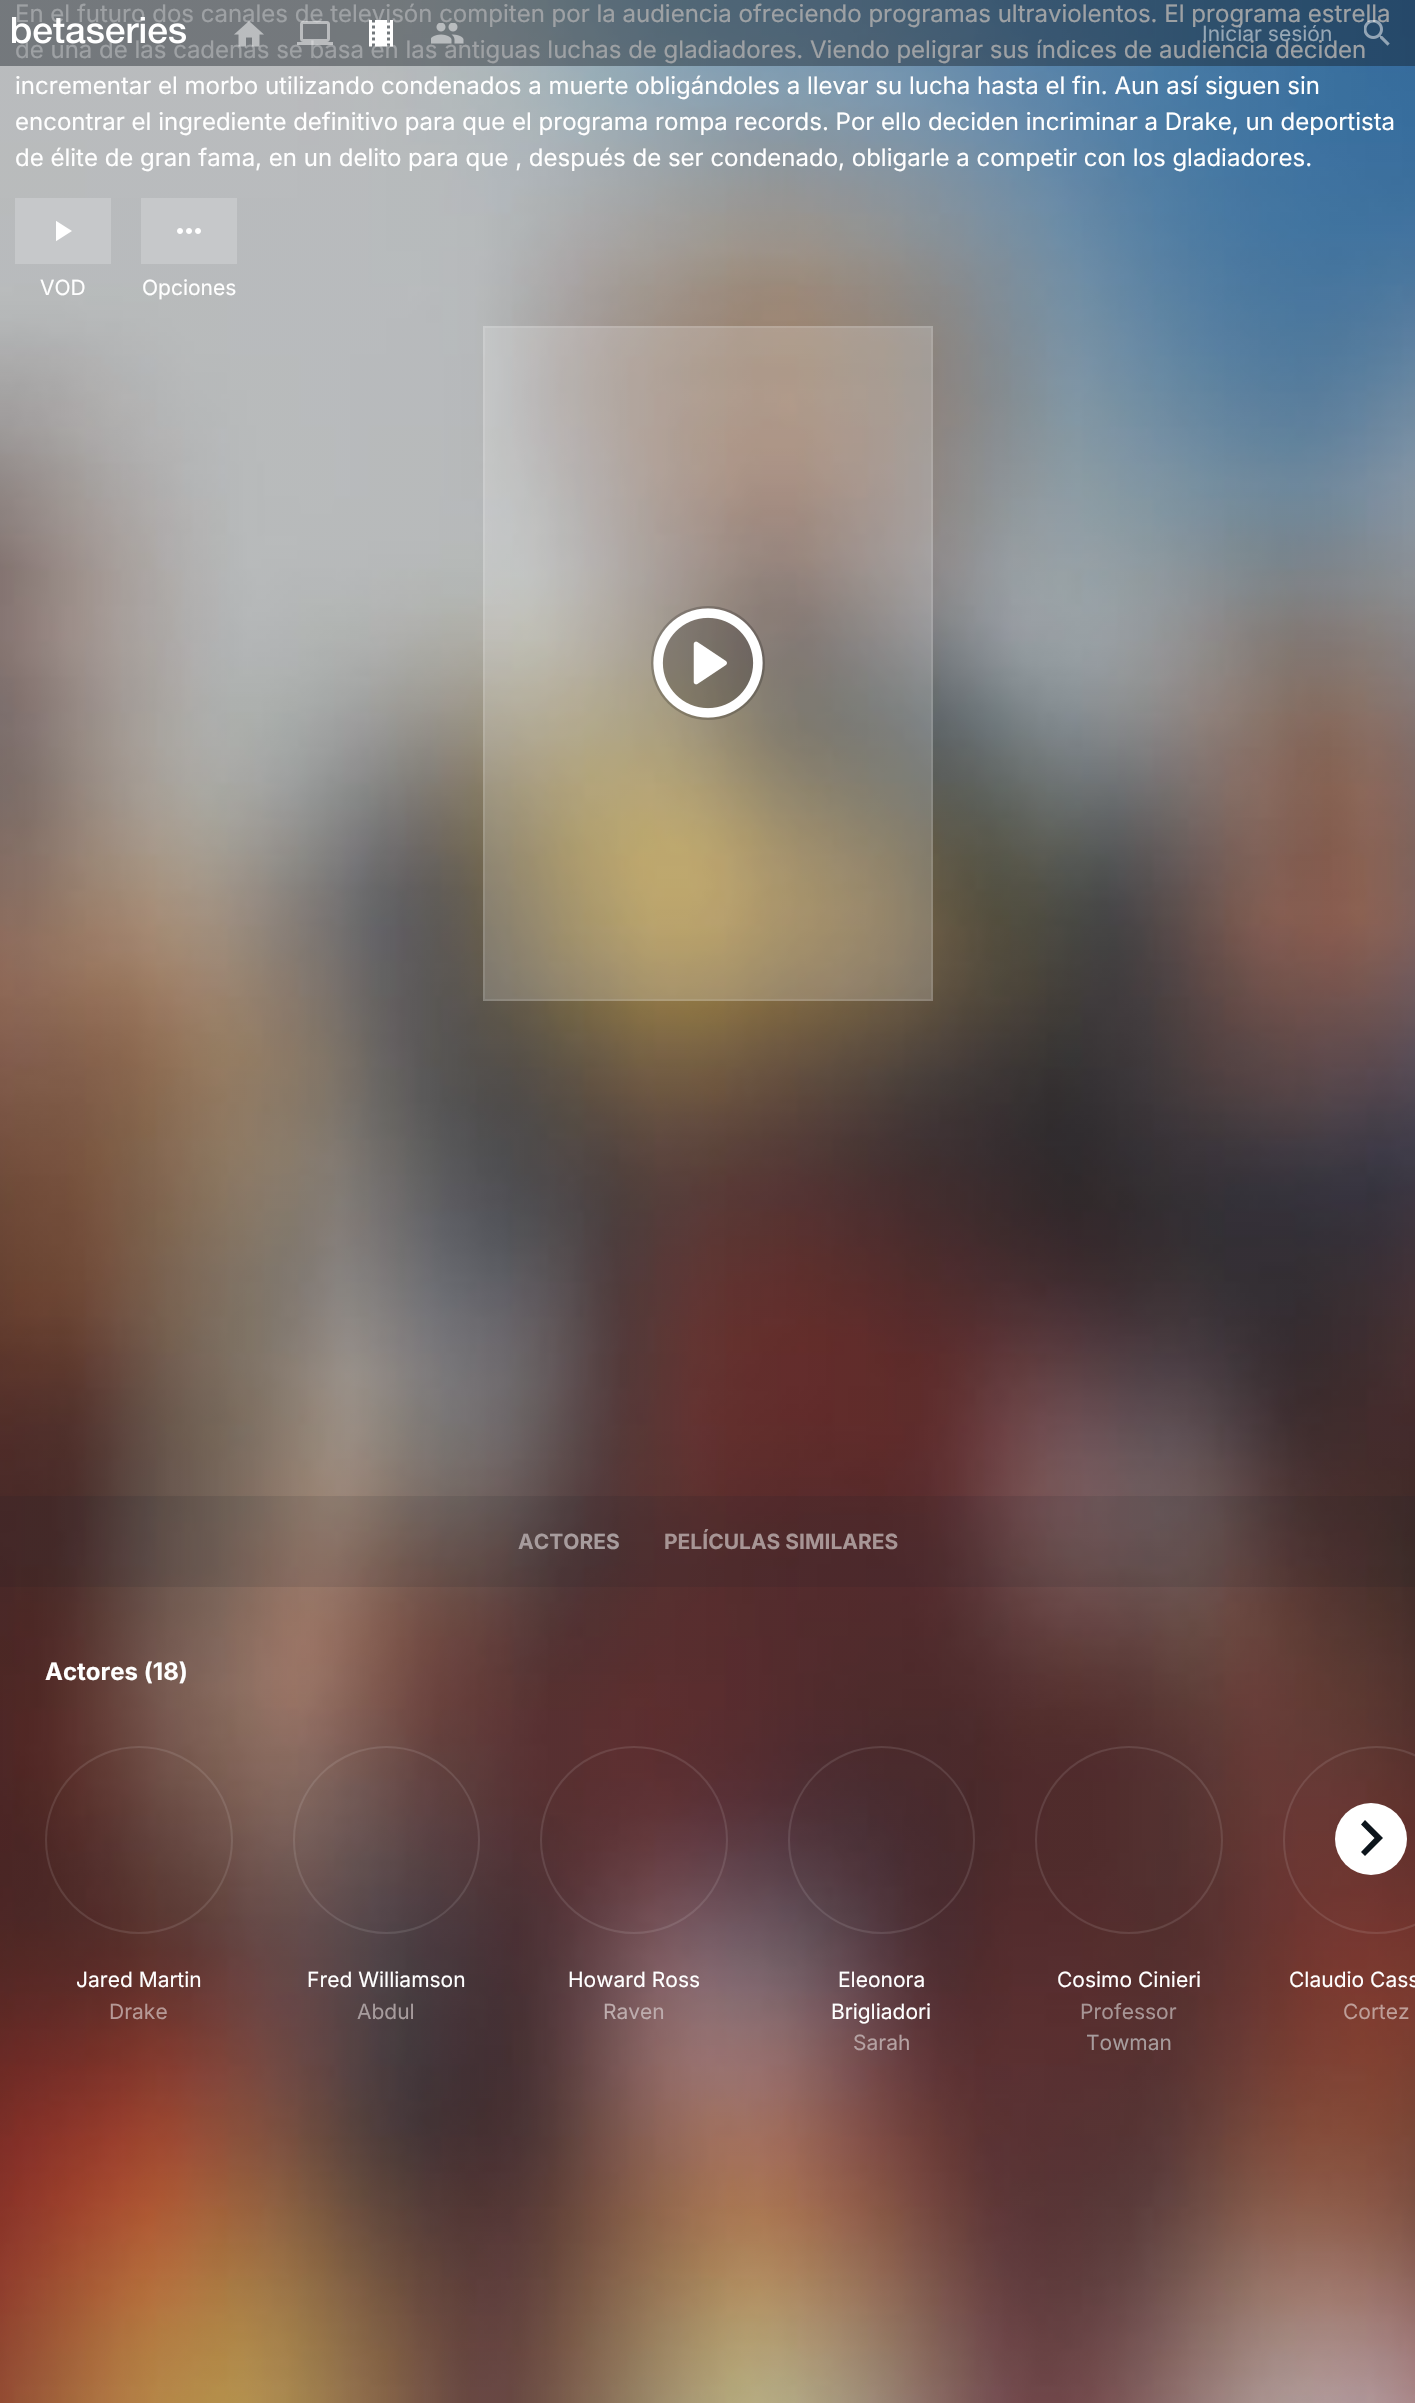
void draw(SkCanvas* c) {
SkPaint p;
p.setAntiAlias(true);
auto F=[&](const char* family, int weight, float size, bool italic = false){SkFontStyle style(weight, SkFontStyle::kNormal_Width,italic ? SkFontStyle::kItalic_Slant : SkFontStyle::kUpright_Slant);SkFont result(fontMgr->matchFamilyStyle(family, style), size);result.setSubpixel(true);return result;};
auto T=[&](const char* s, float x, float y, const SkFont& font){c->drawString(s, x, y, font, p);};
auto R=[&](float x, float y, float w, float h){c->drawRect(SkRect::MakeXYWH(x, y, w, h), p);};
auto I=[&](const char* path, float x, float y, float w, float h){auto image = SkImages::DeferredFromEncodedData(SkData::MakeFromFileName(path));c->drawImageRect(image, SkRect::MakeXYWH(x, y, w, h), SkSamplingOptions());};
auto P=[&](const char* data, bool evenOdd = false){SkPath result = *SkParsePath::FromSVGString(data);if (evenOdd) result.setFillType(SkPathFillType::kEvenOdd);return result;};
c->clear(0xffffffff);
I("1.png",0,0,1415,2403);
auto f1 = F("Inter",400,24);
p.setColor(0xffffffff);
T("En el futuro dos canales de televisón compiten por la audiencia ofreciendo programas ultraviolentos. El programa estrella",15,22,f1);
T("de una de las cadenas se basa en las antiguas luchas de gladiadores. Viendo peligrar sus índices de audiencia deciden",15,58,f1);
T("incrementar el morbo utilizando condenados a muerte obligándoles a llevar su lucha hasta el fin. Aun así siguen sin",15,94,f1);
T("encontrar el ingrediente definitivo para que el programa rompa records. Por ello deciden incriminar a Drake, un deportista",15,130,f1);
T("de élite de gran fama, en un delito para que , después de ser condenado, obligarle a competir con los gladiadores.",15,166,f1);
p.setColor(0xffc6c8ca);
R(15,198,96,66);
c->save();
c->clipRect(SkRect::MakeXYWH(56,221,16,21));
p.setColor(0xffffffff);
c->drawPath(P("M55.5 220.5v21l16.5-10.5z"),p);
c->restore();
auto f2 = F("Inter",400,21);
T("VOD",40,295,f2);
p.setColor(0xffc6c8ca);
R(141,198,96,66);
I("2.png",177,228,24,6);
p.setColor(0xffffffff);
T("Opciones",142,295,f2);
p.setColor(0x33ffffff);
R(483,326,450,675);
p.setStroke(true);
p.setStrokeWidth(2);
p.setColor(0x1affffff);
c->drawRect(SkRect::MakeXYWH(484,327,448,673),p);
p.setStroke(false);
p.setColor(0x33000000);
c->drawCircle(708,663,57,p);
I("3.png",653,608,110,110);
p.setColor(0x1a0d151c);
R(0,1496,1415,91);
auto f3 = F("Inter",700,21);
p.setColor(0xffa79c9d);
T("ACTORES",518,1549,f3);
p.setColor(0xffa79595);
T("PELÍCULAS SIMILARES",664,1549,f3);
auto f4 = F("Inter",700,24);
p.setColor(0xffffffff);
T("Actores (18)",45,1680,f4);
p.setStroke(true);
p.setColor(0x1affffff);
c->drawRoundRect(SkRect::MakeXYWH(1284,1747,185,186),92.5,92.5,p);
p.setStroke(false);
p.setColor(0xffffffff);
c->drawCircle(1371,1839,36,p);
p.setColor(0xff0d151c);
c->drawPath(P("M1361 1852l13.5-14l-13.5-13.5l4-4.5l18 18l-18 18z"),p);
p.setStroke(true);
p.setColor(0x1affffff);
c->drawCircle(139,1840,93,p);
p.setStroke(false);
p.setColor(0xffffffff);
T("Jared Martin",76,1987,f2);
p.setColor(0xffb69996);
T("Drake",109,2019,f2);
p.setStroke(true);
p.setColor(0x1affffff);
c->drawRoundRect(SkRect::MakeXYWH(294,1747,185,186),92.5,92.5,p);
p.setStroke(false);
p.setColor(0xffffffff);
T("Fred Williamson",307,1987,f2);
p.setColor(0xffa79c9d);
T("Abdul",357,2019,f2);
p.setStroke(true);
p.setColor(0x1affffff);
c->drawCircle(634,1840,93,p);
p.setStroke(false);
p.setColor(0xffffffff);
T("Howard Ross",568,1987,f2);
p.setColor(0xffbdacad);
T("Raven",603,2019,f2);
p.setStroke(true);
p.setColor(0x1affffff);
c->drawRoundRect(SkRect::MakeXYWH(789,1747,185,186),92.5,92.5,p);
p.setStroke(false);
p.setColor(0xffffffff);
T("Eleonora",838,1987,f2);
T("Brigliadori",831,2019,f2);
p.setColor(0xffb5a2a3);
T("Sarah",853,2050,f2);
p.setStroke(true);
p.setColor(0x1affffff);
c->drawCircle(1129,1840,93,p);
p.setStroke(false);
p.setColor(0xffffffff);
T("Cosimo Cinieri",1057,1987,f2);
p.setColor(0xffa79595);
T("Professor",1080,2019,f2);
p.setColor(0xffa79c9d);
T("Towman",1086,2050,f2);
p.setColor(0xffffffff);
T("Claudio Cass",1289,1987,f2);
p.setColor(0xffbe9e98);
T("Cortez",1343,2019,f2);
p.setColor(0x660d151c);
R(0,0,1415,66);
I("4.png",12,17,174,27);
I("5.png",234,21,30,26);
I("6.png",297,21,36,24);
I("7.png",369,20,24,27);
I("8.png",431,23,33,21);
p.setColor(0xff96a7b6);
T("Iniciar sesión",1202,41,f2);
I("9.png",1364,20,26,26);
}
